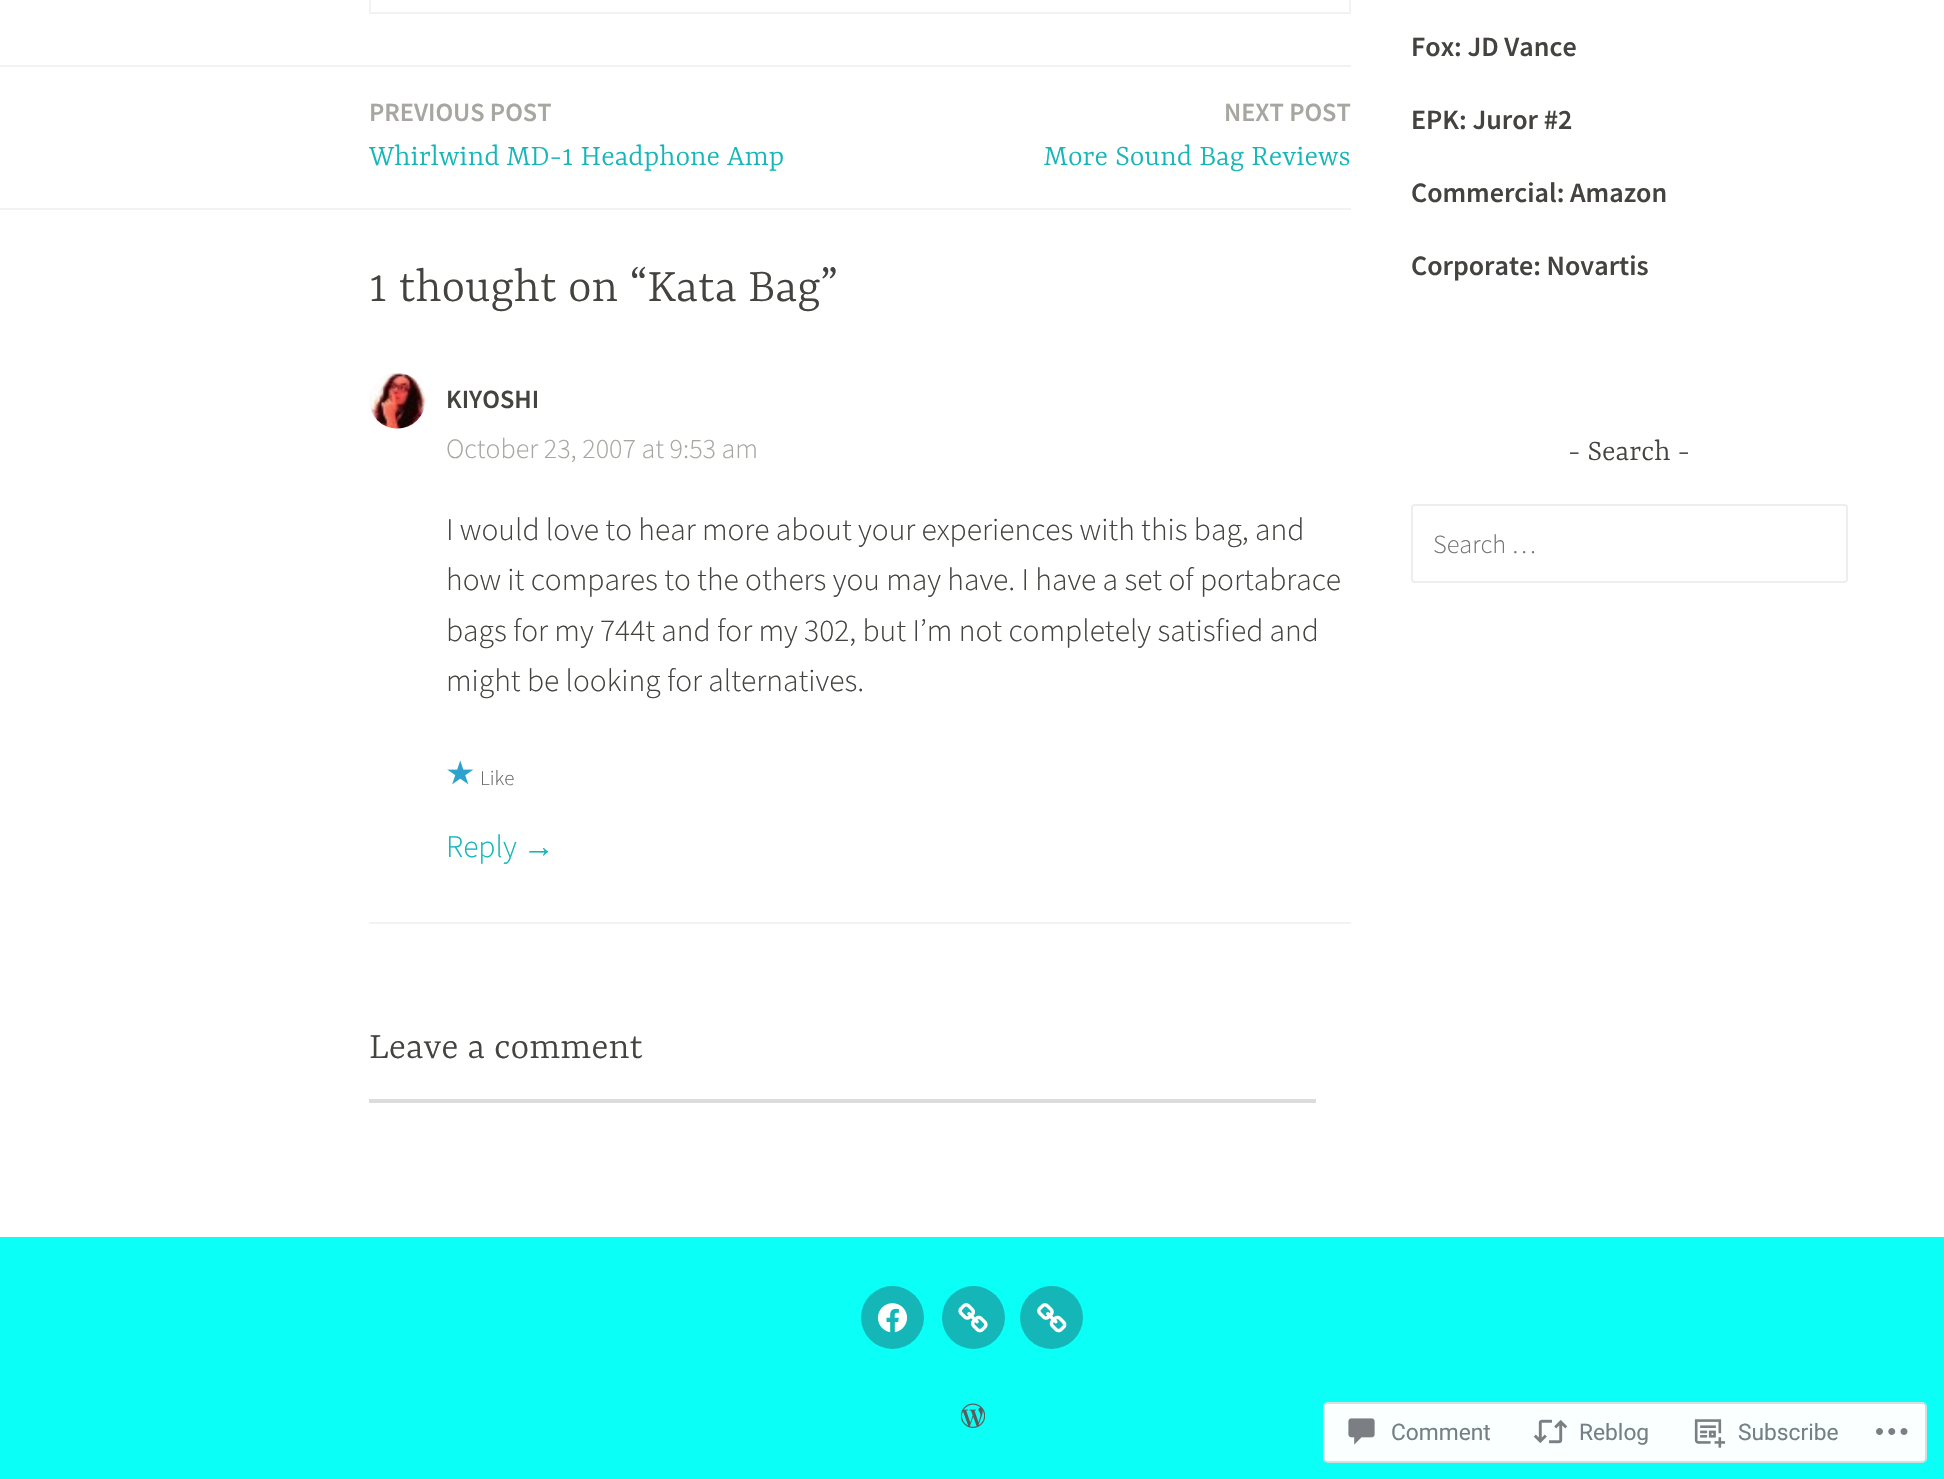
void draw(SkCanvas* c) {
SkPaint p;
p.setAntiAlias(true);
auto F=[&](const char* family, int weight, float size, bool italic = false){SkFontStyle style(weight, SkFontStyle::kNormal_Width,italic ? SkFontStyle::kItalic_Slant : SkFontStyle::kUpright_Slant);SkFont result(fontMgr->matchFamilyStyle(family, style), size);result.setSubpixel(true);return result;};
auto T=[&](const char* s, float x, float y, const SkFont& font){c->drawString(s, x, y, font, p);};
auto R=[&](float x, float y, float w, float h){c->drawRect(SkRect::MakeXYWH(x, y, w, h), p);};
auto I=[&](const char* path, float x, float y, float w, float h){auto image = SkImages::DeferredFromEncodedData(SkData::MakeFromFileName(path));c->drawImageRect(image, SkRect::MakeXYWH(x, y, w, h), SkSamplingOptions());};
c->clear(0xffffffff);
p.setStroke(true);
p.setStrokeWidth(2);
p.setColor(0xfff2f2f2);
c->drawRect(SkRect::MakeXYWH(370,-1,980,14),p);
p.setStroke(false);
R(0,65,1351,2);
auto f1 = F("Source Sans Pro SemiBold",600,26.25);
p.setColor(0xffa8a6a1);
T("PREVIOUS POST",369,121,f1);
auto f2 = F("Yrsa",300,31.5);
p.setColor(0xff15b6b8);
T("Whirlwind MD-1 Headphone Amp",369,165,f2);
p.setColor(0xffa8a6a1);
T("NEXT POST",1224,121,f1);
p.setColor(0xff15b6b8);
T("More Sound Bag Reviews",1044,165,f2);
p.setColor(0xfff2f2f2);
R(0,208,1351,2);
auto f3 = F("Yrsa",300,50.75);
p.setColor(0xff444340);
T("1 thought on “Kata Bag”",369,301,f3);
p.setColor(0xfff2f2f2);
R(369,922,982,2);
I("1.png",369,373,56,56);
p.setColor(0xff444340);
T("KIYOSHI",446,408,f1);
auto f4 = F("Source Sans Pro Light",300,28);
p.setColor(0xffa8a6a1);
T("October 23, 2007 at 9:53 am",446,458,f4);
auto f5 = F("Source Sans Pro Light",300,31.5);
p.setColor(0xff444340);
T("I would love to hear more about your experiences with this bag, and",446,540,f5);
T("how it compares to the others you may have. I have a set of portabrace",446,590,f5);
T("bags for my 744t and for my 302, but I’m not completely satisfied and",446,641,f5);
T("might be looking for alternatives.",446,691,f5);
I("2.png",447,760,27,25);
auto f6 = F("Source Sans Pro Light",300,21);
p.setColor(0xff696966);
T("Like",480,785,f6);
p.setColor(0xff15b6b8);
T("Reply",446,857,f5);
auto f7 = F("Liberation Sans",400,31.5);
T("→",523,857,f7);
auto f8 = F("Yrsa",300,40.25);
p.setColor(0xff444340);
T("Leave a comment",369,1058,f8);
p.setColor(0xffdcdcde);
R(369,1099,947,4);
auto f9 = F("Source Sans Pro SemiBold",600,28);
p.setColor(0xff444340);
T("Fox: JD Vance",1411,56,f9);
T("EPK: Juror #2",1411,129,f9);
T("Commercial: Amazon",1411,202,f9);
T("Corporate: Novartis",1411,275,f9);
T("- Search -",1568,460,f2);
p.setStroke(true);
p.setColor(0xffeeeeee);
c->drawRoundRect(SkRect::MakeXYWH(1412,505,435,77),3,3,p);
auto f10 = F("Source Sans Pro Light",300,26.25);
p.setStroke(false);
p.setColor(0xff757575);
T("Search …",1433,553,f10);
p.setColor(0xff0afff6);
R(0,1237,1944,242);
p.setColor(0xff15b6b8);
c->drawCircle(892.5,1317.5,31.5,p);
I("3.png",877,1303,31,30);
c->drawCircle(973.5,1317.5,31.5,p);
I("4.png",958,1303,30,30);
c->drawCircle(1051.5,1317.5,31.5,p);
I("5.png",1037,1303,30,30);
I("6.png",961,1403,24,25);
p.setColor(0xfffaffff);
c->drawRoundRect(SkRect::MakeXYWH(1324,1403,602,59),4,4,p);
p.setStroke(true);
p.setColor(0xffd8ddde);
c->drawRoundRect(SkRect::MakeXYWH(1324,1403,602,59),4,4,p);
I("7.png",1348,1418,27,27);
auto f11 = F("Roboto",400,22.75);
p.setStroke(false);
p.setColor(0xff767f84);
T("Comment",1391,1440,f11);
I("8.png",1533,1419,35,25);
T("Reblog",1579,1440,f11);
I("9.png",1694,1419,32,29);
T("Subscribe",1738,1440,f11);
I("10.png",1876,1428,32,7);
}
